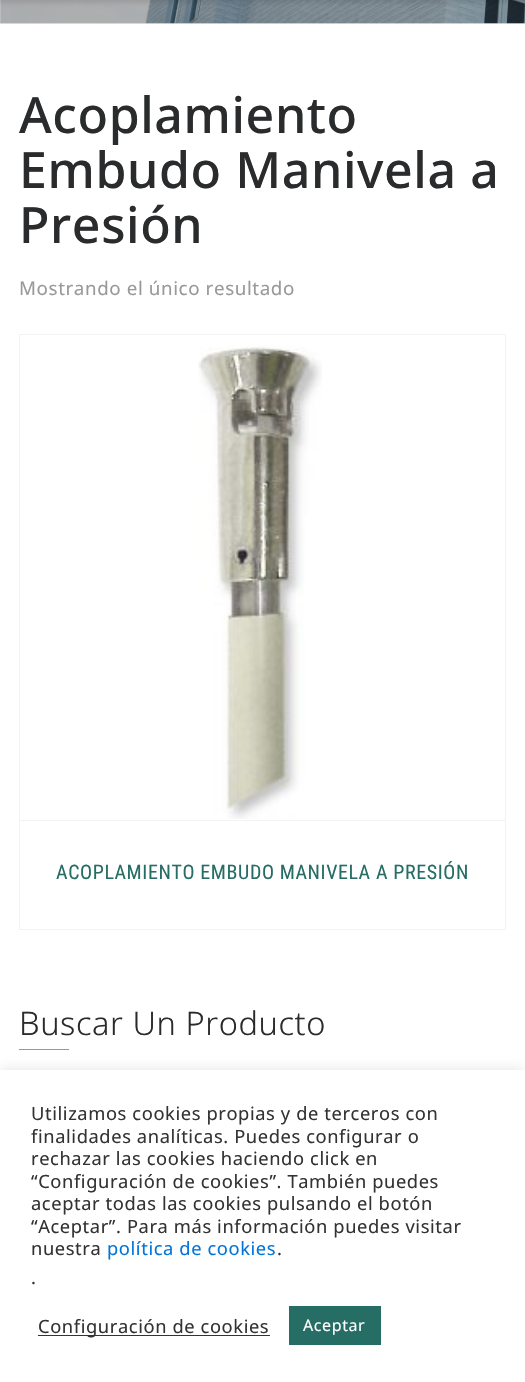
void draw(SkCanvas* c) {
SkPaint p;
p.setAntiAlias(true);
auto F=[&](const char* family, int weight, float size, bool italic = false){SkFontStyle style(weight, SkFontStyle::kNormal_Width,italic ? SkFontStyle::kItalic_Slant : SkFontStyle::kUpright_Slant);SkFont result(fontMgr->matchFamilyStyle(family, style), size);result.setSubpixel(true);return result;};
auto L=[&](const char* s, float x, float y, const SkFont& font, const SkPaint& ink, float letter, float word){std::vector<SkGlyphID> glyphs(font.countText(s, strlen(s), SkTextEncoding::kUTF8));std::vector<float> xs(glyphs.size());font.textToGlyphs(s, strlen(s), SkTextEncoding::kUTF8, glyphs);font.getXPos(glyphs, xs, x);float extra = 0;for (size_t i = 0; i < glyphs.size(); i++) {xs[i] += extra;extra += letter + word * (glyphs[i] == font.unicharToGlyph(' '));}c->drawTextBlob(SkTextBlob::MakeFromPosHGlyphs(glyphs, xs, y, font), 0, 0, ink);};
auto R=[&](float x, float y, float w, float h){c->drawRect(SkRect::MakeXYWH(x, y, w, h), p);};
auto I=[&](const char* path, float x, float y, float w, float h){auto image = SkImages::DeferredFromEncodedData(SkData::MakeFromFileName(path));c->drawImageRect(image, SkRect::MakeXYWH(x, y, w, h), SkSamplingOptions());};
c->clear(0xffffffff);
p.setColor(0xffe6e6e6);
R(0,0,525,24);
I("1.png",0,0,525,24);
p.setColor(0x1a000000);
p.setMaskFilter(SkMaskFilter::MakeBlur(kNormal_SkBlurStyle, 2));
c->drawRect(SkRect::MakeXYWH(-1,-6,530,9),p);
p.setMaskFilter(nullptr);
auto f1 = F("Noto Sans",500,50);
p.setColor(0xff292b2c);
L("Acoplamiento",19,133,f1,p,.6,0);
L("Embudo Manivela a",19,188,f1,p,.6,0);
L("Presión",19,243,f1,p,.6,0);
auto f2 = F("Noto Sans",400,18.75);
p.setColor(0xff999999);
L("Mostrando el único resultado",19,295,f2,p,.6,0);
p.setStroke(true);
p.setStrokeWidth(1);
p.setColor(0xfff3f3f3);
c->drawRect(SkRect::MakeXYWH(19.5,334.5,486,595),p);
p.setStroke(false);
R(20,820,485,1);
I("2.png",198,345,124,474);
auto f3 = F("Roboto Condensed",400,20);
p.setColor(0xff266d65);
L("ACOPLAMIENTO EMBUDO MANIVELA A PRESIÓN",56,879,f3,p,.6,0);
auto f4 = F("Noto Sans",300,32.5);
p.setColor(0xff292b2c);
L("Buscar Un Producto",19,1035,f4,p,.6,0);
p.setColor(0xff999999);
R(19,1049,50,1);
p.setColor(0x4dacabab);
p.setMaskFilter(SkMaskFilter::MakeBlur(kNormal_SkBlurStyle, 6));
c->drawRect(SkRect::MakeXYWH(0,1069,525,312),p);
p.setMaskFilter(nullptr);
p.setColor(0xffffffff);
R(0,1070,525,312);
auto f5 = F("Noto Sans",400,18.3);
p.setColor(0xff333333);
L("Utilizamos cookies propias y de terceros con",31,1120,f5,p,.6,0);
L("finalidades analíticas. Puedes configurar o",31,1143,f5,p,.6,0);
L("rechazar las cookies haciendo click en",31,1165,f5,p,.6,0);
L("“Configuración de cookies”. También puedes",31,1188,f5,p,.6,0);
L("aceptar todas las cookies pulsando el botón",31,1210,f5,p,.6,0);
L("“Aceptar”. Para más información puedes visitar",31,1233,f5,p,.6,0);
L("nuestra",31,1255,f5,p,.6,0);
p.setColor(0xff0275d8);
L("política de cookies",107,1255,f5,p,.6,0);
p.setColor(0xff333333);
L(".",277,1255,f5,p,.6,0);
L(".",31,1284,f5,p,.6,0);
R(38,1335,232,1);
L("Configuración de cookies",38,1333,f5,p,.6,0);
p.setColor(0xff266d65);
R(289,1306,92,39);
auto f6 = F("Noto Sans",400,16);
p.setColor(0xffffffff);
L("Aceptar",303,1331,f6,p,.6,0);
}
